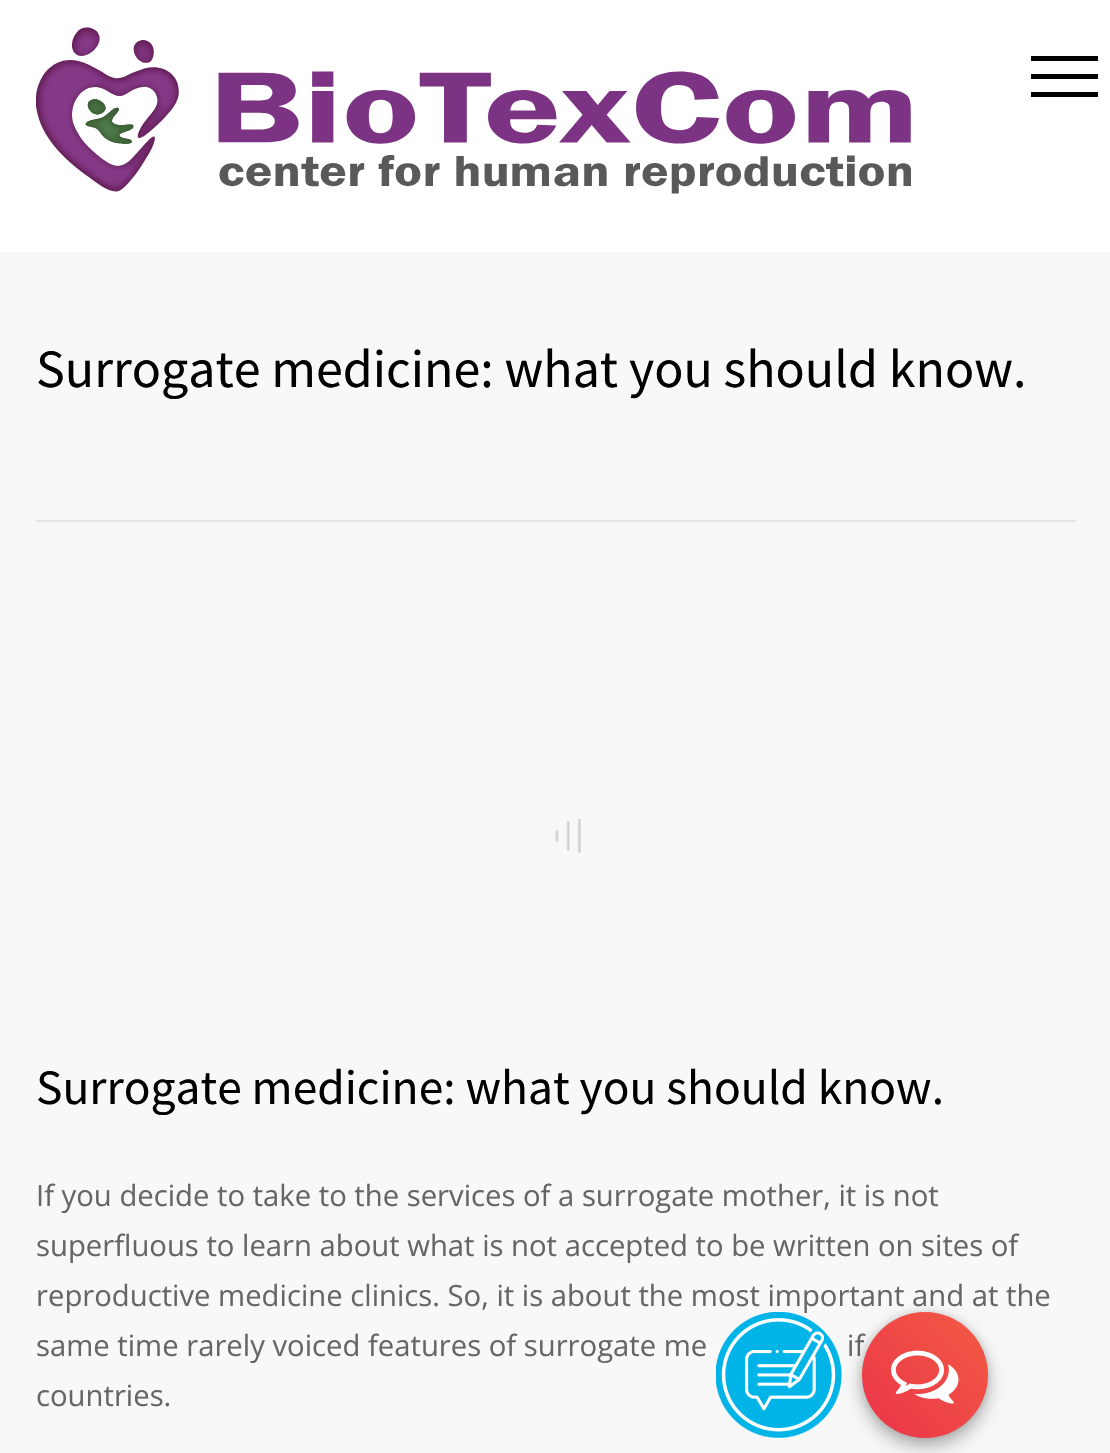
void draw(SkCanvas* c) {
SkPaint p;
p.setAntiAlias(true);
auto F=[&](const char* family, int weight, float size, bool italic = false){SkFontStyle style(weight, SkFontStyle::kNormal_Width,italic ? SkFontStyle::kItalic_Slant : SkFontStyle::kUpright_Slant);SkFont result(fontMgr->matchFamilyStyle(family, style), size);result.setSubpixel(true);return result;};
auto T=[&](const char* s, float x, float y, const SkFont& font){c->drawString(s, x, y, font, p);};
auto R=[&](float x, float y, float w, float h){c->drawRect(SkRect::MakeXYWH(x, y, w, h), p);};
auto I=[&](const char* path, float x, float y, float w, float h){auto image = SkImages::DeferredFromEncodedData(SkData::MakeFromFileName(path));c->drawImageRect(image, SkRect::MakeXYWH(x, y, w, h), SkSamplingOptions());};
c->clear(0xfff8f8f8);
p.setColor(0xffffffff);
R(0,0,1110,252);
I("1.png",36,27,875,167);
p.setColor(0xff000000);
R(1031,56,67,5);
R(1031,74,67,5);
R(1031,92,67,5);
p.setColor(0xffe5e5e5);
R(36,520,1040,2);
auto f1 = F("Source Sans Pro",400,54);
p.setColor(0xff000000);
T("Surrogate medicine: what you should know.",36,387,f1);
I("2.png",555,819,26,34);
auto f2 = F("Source Sans Pro",400,49.5);
T("Surrogate medicine: what you should know.",36,1104,f2);
auto f3 = F("Open Sans",400,29.25);
p.setColor(0xff666666);
T("If you decide to take to the services of a surrogate mother, it is not",36,1206,f3);
T("superfluous to learn about what is not accepted to be written on sites of",36,1256,f3);
T("reproductive medicine clinics. So, it is about the most important and at the",36,1306,f3);
T("same time rarely voiced features of surrogate me",36,1356,f3);
T("if",847,1356,f3);
T("countries.",36,1406,f3);
p.setColor(0x47000000);
p.setMaskFilter(SkMaskFilter::MakeBlur(kNormal_SkBlurStyle, 9));
c->drawRoundRect(SkRect::MakeXYWH(862,1321,126,126),63,63,p);
p.setMaskFilter(nullptr);
I("3.png",716,1312,126,126);
p.setColor(0x24000000);
p.setMaskFilter(SkMaskFilter::MakeBlur(kNormal_SkBlurStyle, 4.5));
c->drawRoundRect(SkRect::MakeXYWH(862,1312,126,126),63,63,p);
p.setMaskFilter(nullptr);
{
const SkColor colors[] = {0xffeb3449,0xfff25b43};
const float stops[] = {0,1};
const SkPoint ends[] = {{862,1438}, {988,1312}};
p.setShader(SkGradientShader::MakeLinear(ends, colors, stops, 2, SkTileMode::kClamp));
p.setAlpha(255);
}
c->drawCircle(925,1375,63,p);
I("4.png",891,1350,68,54);
}
